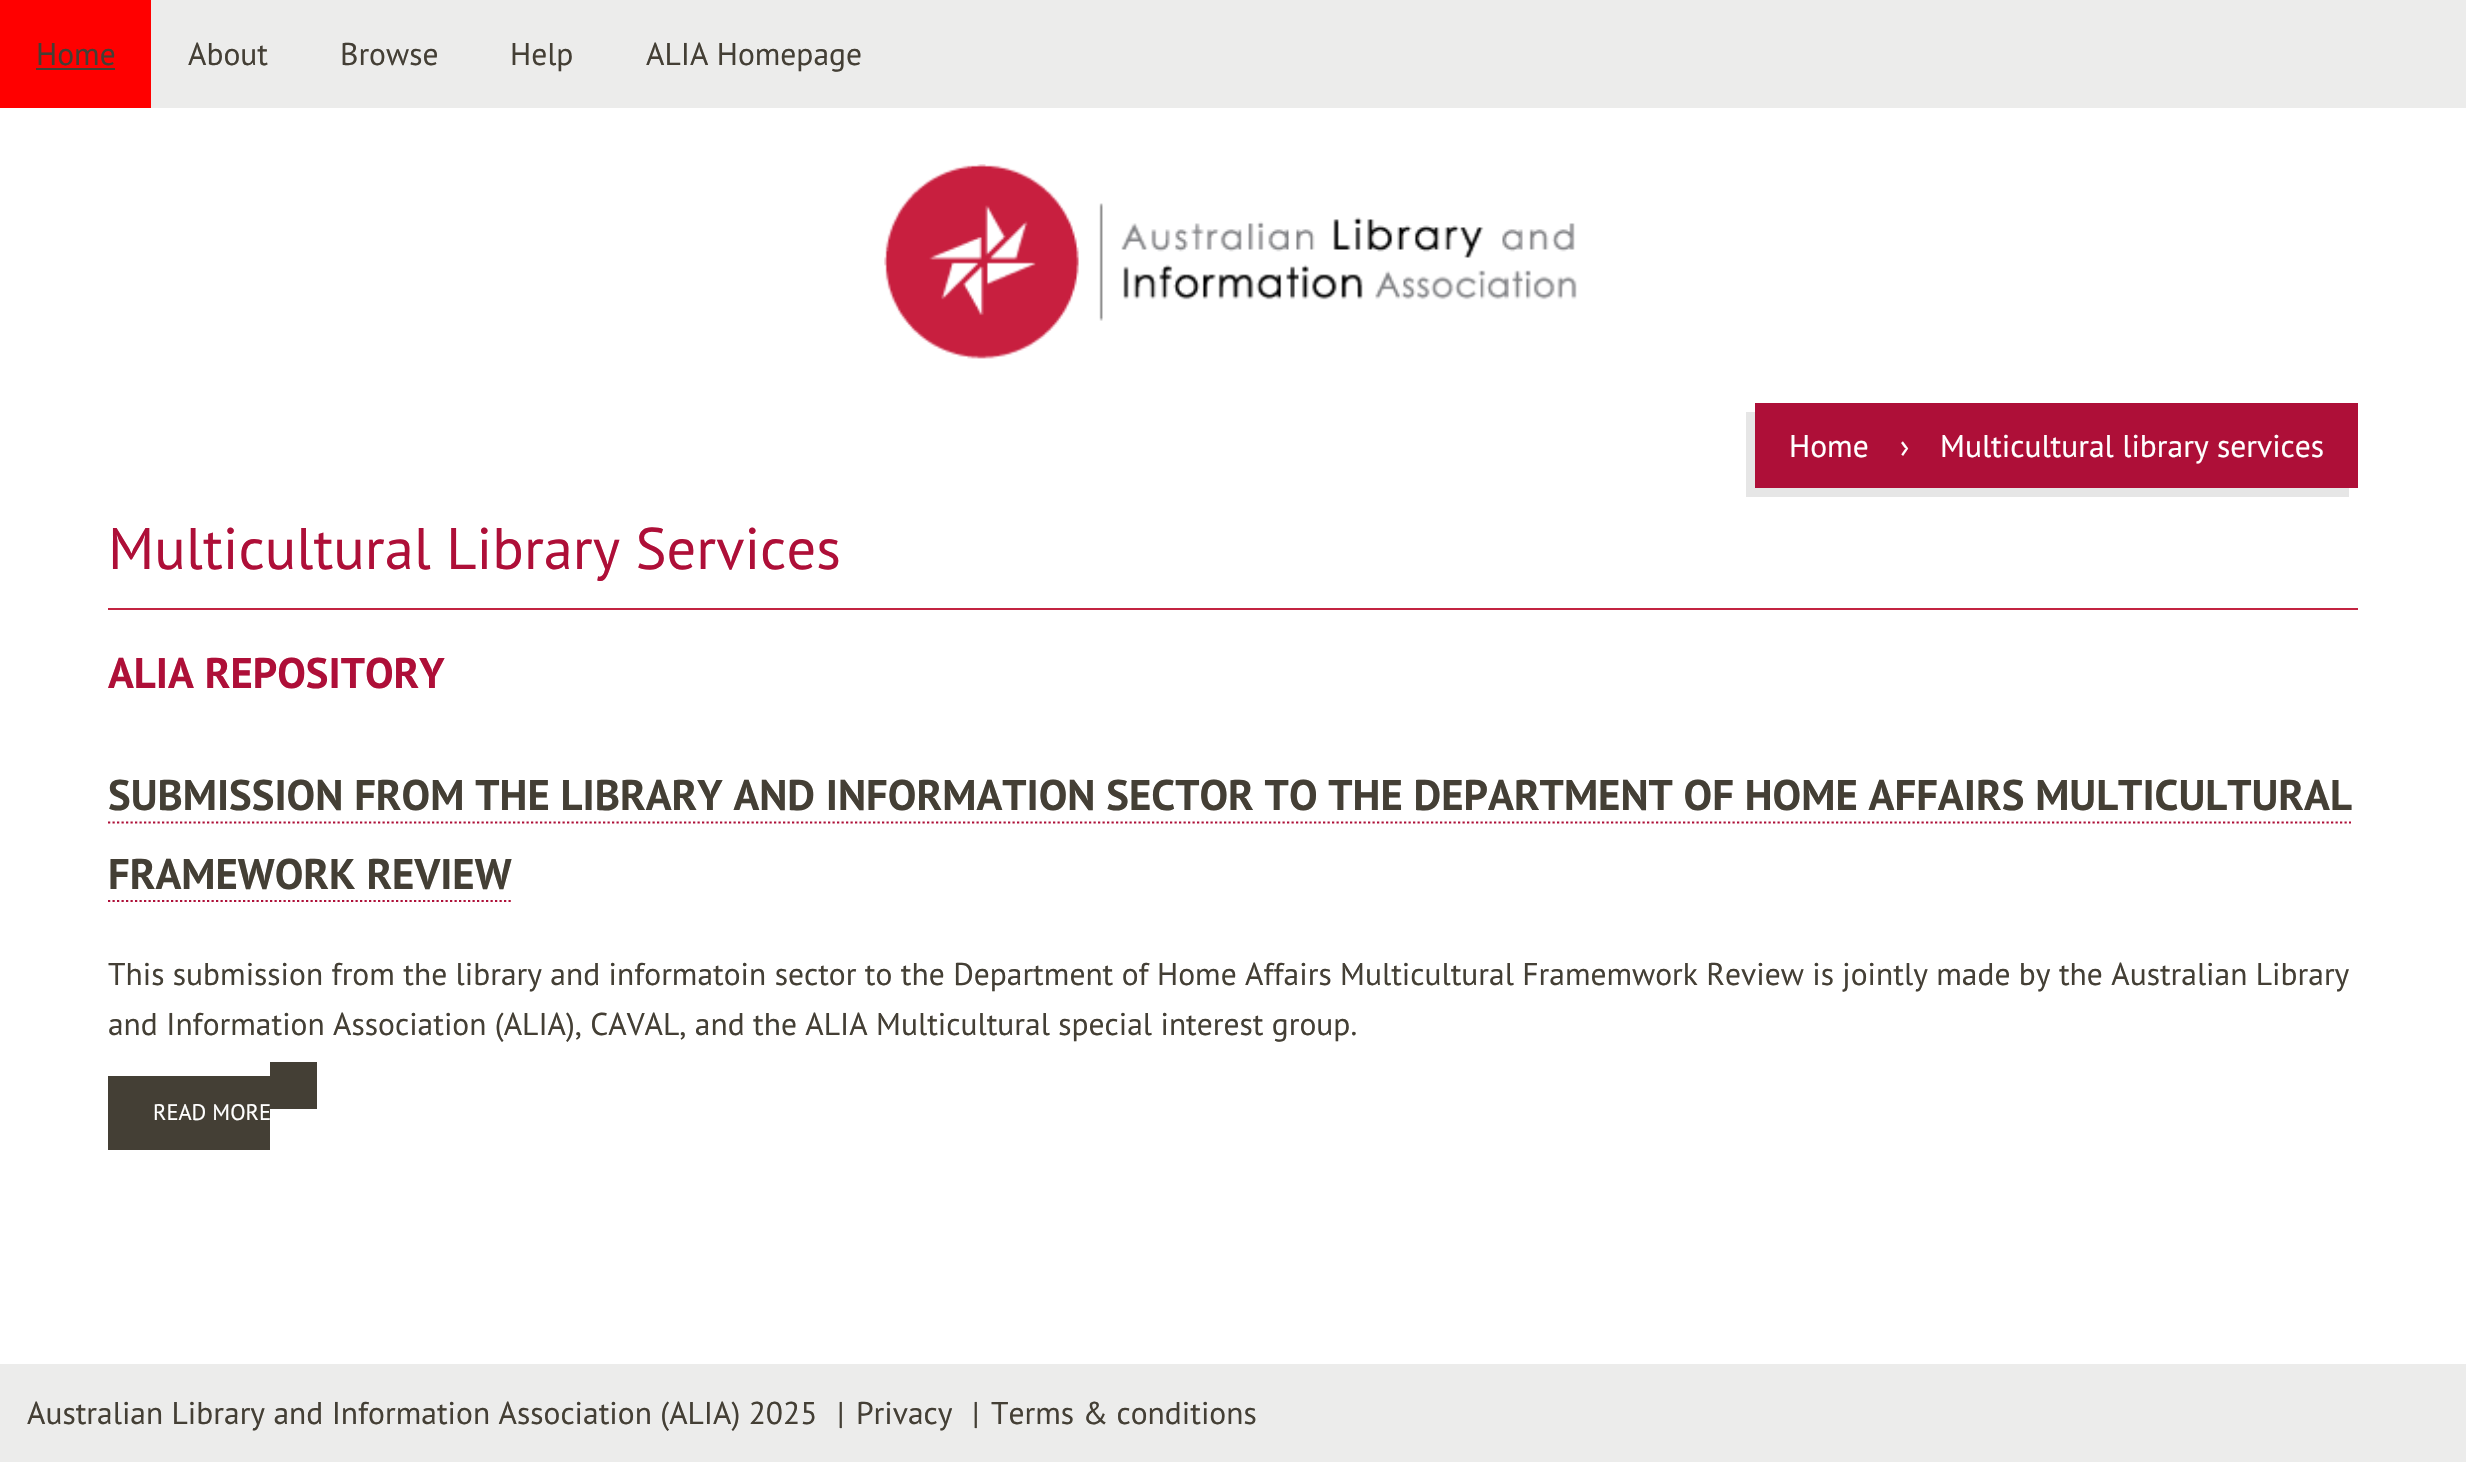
void draw(SkCanvas* c) {
SkPaint p;
p.setAntiAlias(true);
auto F=[&](const char* family, int weight, float size, bool italic = false){SkFontStyle style(weight, SkFontStyle::kNormal_Width,italic ? SkFontStyle::kItalic_Slant : SkFontStyle::kUpright_Slant);SkFont result(fontMgr->matchFamilyStyle(family, style), size);result.setSubpixel(true);return result;};
auto T=[&](const char* s, float x, float y, const SkFont& font){c->drawString(s, x, y, font, p);};
auto R=[&](float x, float y, float w, float h){c->drawRect(SkRect::MakeXYWH(x, y, w, h), p);};
auto I=[&](const char* path, float x, float y, float w, float h){auto image = SkImages::DeferredFromEncodedData(SkData::MakeFromFileName(path));c->drawImageRect(image, SkRect::MakeXYWH(x, y, w, h), SkSamplingOptions());};
auto P=[&](const char* data, bool evenOdd = false){SkPath result = *SkParsePath::FromSVGString(data);if (evenOdd) result.setFillType(SkPathFillType::kEvenOdd);return result;};
c->clear(0xffffffff);
p.setColor(0xffececeb);
R(151,0,2315,108);
p.setColor(0xffff0000);
R(0,0,151,108);
auto f1 = F("PT Sans",400,31.5);
p.setColor(0xff443f35);
T("Home",36,65,f1);
R(36,68,79,2);
T("About",188,65,f1);
T("Browse",340,65,f1);
T("Help",510,65,f1);
T("ALIA Homepage",646,65,f1);
I("1.png",884,164,693,195);
p.setColor(0xffe6e6e6);
c->drawPath(P("M1746 412v85h603v-9h-594v-76z"),p);
p.setColor(0xffae0f38);
R(1755,403,603,85);
p.setColor(0xffffffff);
T("Home",1789,457,f1);
T("›",1900,457,f1);
T("Multicultural library services",1940,457,f1);
p.setColor(0xffc32441);
R(108,608,2250,2);
auto f2 = F("PT Sans",400,58.5);
p.setColor(0xffae0f38);
T("Multicultural Library Services",108,569,f2);
auto f3 = F("PT Sans",700,42.75);
T("ALIA REPOSITORY",108,688,f3);
p.setColor(0xff443f35);
T("SUBMISSION FROM THE LIBRARY AND INFORMATION SECTOR TO THE DEPARTMENT OF HOME AFFAIRS MULTICULTURAL",108,810,f3);
p.setStroke(true);
p.setStrokeWidth(2.2);
p.setColor(0xffae0f38);
p.setPathEffect(SkDashPathEffect::Make({{2.25f,2.25f}}, 0));
c->drawPath(P("M108 822.5h2243"),p);
p.setPathEffect(nullptr);
p.setStroke(false);
p.setColor(0xff443f35);
T("FRAMEWORK REVIEW",108,889,f3);
p.setStroke(true);
p.setColor(0xffae0f38);
p.setPathEffect(SkDashPathEffect::Make({{2.25f,2.25f}}, 0));
c->drawPath(P("M108 901h403"),p);
p.setPathEffect(nullptr);
p.setStroke(false);
p.setColor(0xff443f35);
T("This submission from the library and informatoin sector to the Department of Home Affairs Multicultural Framemwork Review is jointly made by the Australian Library",108,985,f1);
T("and Information Association (ALIA), CAVAL, and the ALIA Multicultural special interest group.",108,1035,f1);
R(108,1076,162,74);
auto f4 = F("PT Sans",400,22.5);
p.setColor(0xffffffff);
T("READ MORE",153,1120,f4);
p.setColor(0xff443f35);
R(270,1062,47,47);
p.setColor(0xffececeb);
R(0,1364,2466,98);
p.setColor(0xff443f35);
T("Australian Library and Information Association (ALIA) 2025",27,1424,f1);
T("|",837,1424,f1);
T("Privacy",856,1424,f1);
T("|",972,1424,f1);
T("Terms & conditions",991,1424,f1);
}
